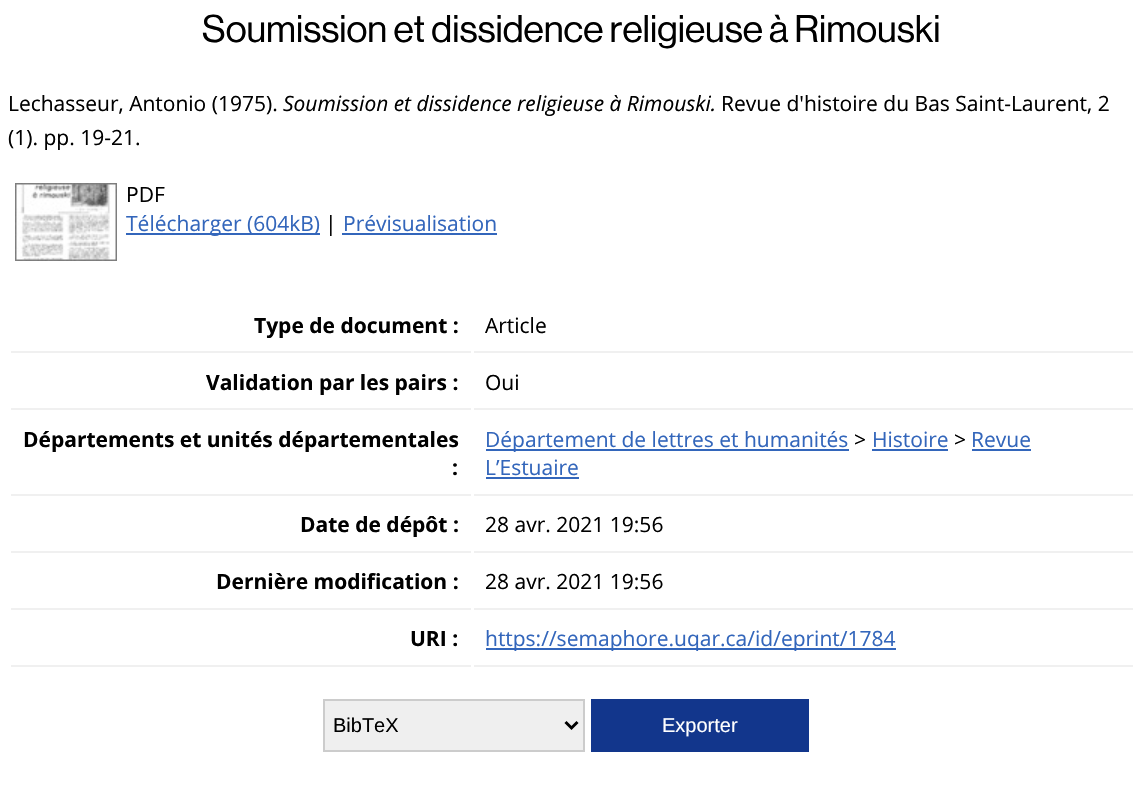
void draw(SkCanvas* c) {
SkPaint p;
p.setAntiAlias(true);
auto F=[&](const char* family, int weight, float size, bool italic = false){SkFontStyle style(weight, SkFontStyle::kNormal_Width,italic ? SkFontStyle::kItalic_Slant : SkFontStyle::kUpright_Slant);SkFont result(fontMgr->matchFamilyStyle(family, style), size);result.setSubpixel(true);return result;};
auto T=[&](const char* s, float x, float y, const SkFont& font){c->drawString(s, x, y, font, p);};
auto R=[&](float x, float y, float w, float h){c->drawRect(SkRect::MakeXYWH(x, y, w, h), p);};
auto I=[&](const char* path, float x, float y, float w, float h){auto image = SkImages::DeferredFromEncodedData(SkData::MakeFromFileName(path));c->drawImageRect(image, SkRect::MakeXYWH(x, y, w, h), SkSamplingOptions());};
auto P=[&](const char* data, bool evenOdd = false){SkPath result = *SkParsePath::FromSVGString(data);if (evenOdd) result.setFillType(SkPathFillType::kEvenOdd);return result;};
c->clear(0xffffffff);
auto f1 = F("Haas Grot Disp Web",500,37.75);
p.setColor(0xff000000);
T("Soumission et dissidence religieuse à Rimouski",202,42,f1);
auto f2 = F("Open Sans",400,21);
T("Lechasseur, Antonio (1975).",8,111,f2);
auto f3 = F("Open Sans",400,21,true);
T("Soumission et dissidence religieuse à Rimouski.",283,111,f3);
T("Revue d'histoire du Bas Saint-Laurent, 2",721,111,f2);
T("(1). pp. 19-21.",8,145,f2);
I("1.png",15,183,102,78);
T("PDF",126,202,f2);
p.setColor(0xff3366bb);
R(126,233,194,2);
T("Télécharger (604kB)",126,231,f2);
p.setColor(0xff000000);
T("|",325,231,f2);
p.setColor(0xff3366bb);
T("Prévisualisation",343,231,f2);
R(342,233,155,2);
p.setColor(0xfff0f0f0);
R(11,351,460,2);
auto f4 = F("Open Sans",700,21);
p.setColor(0xff000000);
T("Type de document :",254,333,f4);
p.setColor(0xfff0f0f0);
R(474,351,659,2);
p.setColor(0xff000000);
T("Article",485,333,f2);
p.setColor(0xfff0f0f0);
R(11,408,460,2);
p.setColor(0xff000000);
T("Validation par les pairs :",206,390,f4);
p.setColor(0xfff0f0f0);
R(474,408,659,2);
p.setColor(0xff000000);
T("Oui",485,390,f2);
p.setColor(0xfff0f0f0);
R(11,494,460,2);
p.setColor(0xff000000);
T("Départements et unités départementales",23,447,f4);
T(":",452,475,f4);
p.setColor(0xfff0f0f0);
R(474,494,659,2);
p.setColor(0xff3366bb);
R(486,449,363,2);
T("Département de lettres et humanités",485,447,f2);
p.setColor(0xff000000);
T(">",854,447,f2);
p.setColor(0xff3366bb);
T("Histoire",872,447,f2);
R(872,449,76,2);
p.setColor(0xff000000);
T(">",954,447,f2);
p.setColor(0xff3366bb);
T("Revue",971,447,f2);
R(972,449,59,2);
T("L’Estuaire",485,475,f2);
R(486,477,93,2);
p.setColor(0xfff0f0f0);
R(11,551,460,2);
p.setColor(0xff000000);
T("Date de dépôt :",300,532,f4);
p.setColor(0xfff0f0f0);
R(474,551,659,2);
p.setColor(0xff000000);
T("28 avr. 2021 19:56",485,532,f2);
p.setColor(0xfff0f0f0);
R(11,608,460,2);
p.setColor(0xff000000);
T("Dernière modification :",216,589,f4);
p.setColor(0xfff0f0f0);
R(474,608,659,2);
p.setColor(0xff000000);
T("28 avr. 2021 19:56",485,589,f2);
p.setColor(0xfff0f0f0);
R(11,665,460,2);
p.setColor(0xff000000);
T("URI :",410,646,f4);
p.setColor(0xfff0f0f0);
R(474,665,659,2);
p.setColor(0xff3366bb);
R(486,648,410,2);
T("https://semaphore.uqar.ca/id/eprint/1784",485,646,f2);
p.setColor(0xffefefef);
c->drawRect(SkRect::MakeXYWH(324,700,260,51),p);
p.setStroke(true);
p.setStrokeWidth(2);
p.setColor(0xffcccccc);
c->drawRect(SkRect::MakeXYWH(324,700,260,51),p);
p.setStrokeWidth(3);
p.setColor(0xff000000);
c->drawPath(P("M565.5 722l6 6l6-6"),p);
auto f5 = F("Liberation Sans",400,20);
p.setStroke(false);
T("BibTeX",333,732,f5);
p.setColor(0xff12368c);
R(591,699,218,53);
p.setColor(0xffffffff);
T("Exporter",662,732,f5);
}
